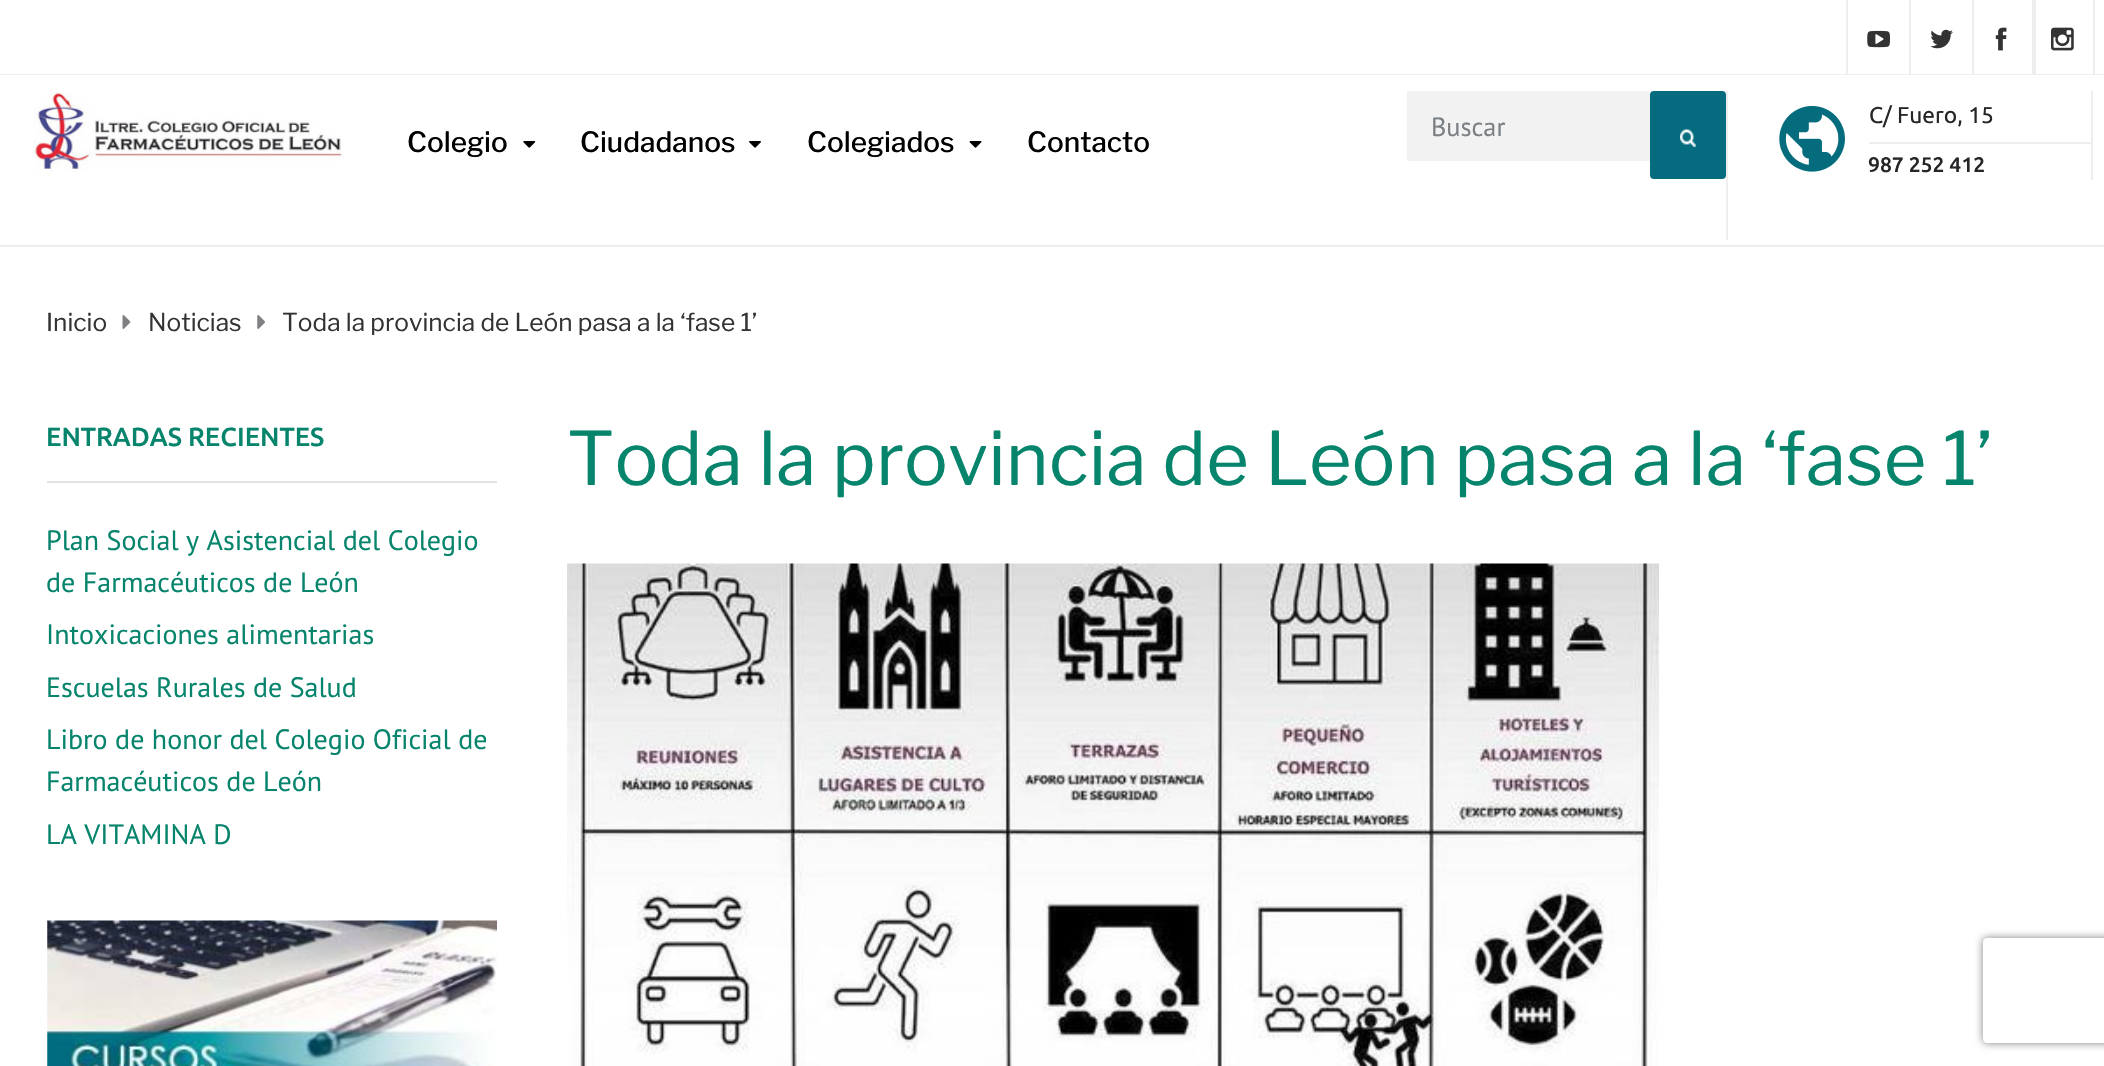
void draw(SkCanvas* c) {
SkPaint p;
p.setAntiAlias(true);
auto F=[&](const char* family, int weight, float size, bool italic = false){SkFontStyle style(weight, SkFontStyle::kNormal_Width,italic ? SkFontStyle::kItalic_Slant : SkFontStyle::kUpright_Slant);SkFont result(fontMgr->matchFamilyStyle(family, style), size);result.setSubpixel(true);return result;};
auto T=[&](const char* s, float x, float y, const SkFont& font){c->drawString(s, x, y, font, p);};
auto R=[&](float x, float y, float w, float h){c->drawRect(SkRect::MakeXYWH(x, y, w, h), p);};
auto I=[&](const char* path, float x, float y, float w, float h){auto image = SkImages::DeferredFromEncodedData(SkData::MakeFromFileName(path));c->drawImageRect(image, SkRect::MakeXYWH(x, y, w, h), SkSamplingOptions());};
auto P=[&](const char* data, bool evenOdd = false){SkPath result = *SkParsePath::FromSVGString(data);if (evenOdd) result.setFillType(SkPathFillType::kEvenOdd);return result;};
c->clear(0xffffffff);
p.setColor(0xffededed);
R(0,245,2104,2);
p.setColor(0xffeeeeee);
R(0,74,2104,1);
R(1846,0,2,74);
I("1.png",1867,30,23,18);
R(1909,0,2,74);
I("2.png",1930,29,23,20);
R(1972,0,2,74);
I("3.png",1995,27,12,24);
R(2093,0,2,74);
R(2032,0,4,74);
I("4.png",2051,27,23,24);
I("5.png",33,92,309,79);
R(1726,91,2,149);
p.setColor(0xfff2f2f2);
R(1407,91,243,70);
auto f1 = F("PT Sans",400,26.25);
p.setColor(0xff7b8085);
T("Buscar",1431,136,f1);
p.setColor(0xff046c7e);
c->drawRoundRect(SkRect::MakeXYWH(1652,93,72,84),2,2,p);
p.setStroke(true);
p.setStrokeWidth(4);
c->drawRoundRect(SkRect::MakeXYWH(1652,93,72,84),2,2,p);
I("6.png",1680,129,16,18);
p.setStroke(false);
p.setColor(0xffeeeeee);
R(2091,91,2,89);
I("7.png",1779,105,66,67);
R(1869,142,222,2);
auto f2 = F("Ubuntu",400,22.75);
p.setColor(0xff262628);
T("C/ Fuero, 15",1869,123,f2);
auto f3 = F("Ubuntu",500,21);
T("987 252 412",1868,172,f3);
auto f4 = F("Libre Franklin",500,28);
p.setColor(0xff000000);
T("Colegio",407,152,f4);
I("8.png",523,141,13,7);
T("Ciudadanos",580,152,f4);
I("9.png",749,141,12,7);
T("Colegiados",807,152,f4);
I("10.png",969,141,13,7);
T("Contacto",1027,152,f4);
auto f5 = F("Libre Franklin",400,24.5);
p.setColor(0xff333333);
T("Inicio",46,331,f5);
I("11.png",122,315,9,14);
T("Noticias",148,331,f5);
I("12.png",257,315,8,14);
T("Toda la provincia de León pasa a la ‘fase 1’",282,331,f5);
p.setColor(0xffe1e1e1);
R(47,481,450,2);
auto f6 = F("Ubuntu",500,26.25);
p.setColor(0xff06846c);
T("ENTRADAS RECIENTES",46,446,f6);
auto f7 = F("PT Sans",400,28);
T("Plan Social y Asistencial del Colegio",46,550,f7);
T("de Farmacéuticos de León",46,592,f7);
T("Intoxicaciones alimentarias",46,644,f7);
T("Escuelas Rurales de Salud",46,697,f7);
T("Libro de honor del Colegio Oficial de",46,749,f7);
T("Farmacéuticos de León",46,791,f7);
T("LA VITAMINA D",46,844,f7);
I("13.png",47,920,450,146);
auto f8 = F("Libre Franklin",400,73.5);
T("Toda la provincia de León pasa a la ‘fase 1’",567,485,f8);
I("14.png",567,563,1092,503);
c->save();
c->clipPath(P("M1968 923h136v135h-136zm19 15h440c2 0 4 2 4 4v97c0 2-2 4-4 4h-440c-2 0-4-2-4-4v-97c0-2 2-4 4-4z",true),true);
p.setColor(0xff808080);
p.setMaskFilter(SkMaskFilter::MakeBlur(kNormal_SkBlurStyle, 4.5));
c->drawRoundRect(SkRect::MakeXYWH(1983,938,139,105),4,4,p);
p.setMaskFilter(nullptr);
c->restore();
}
